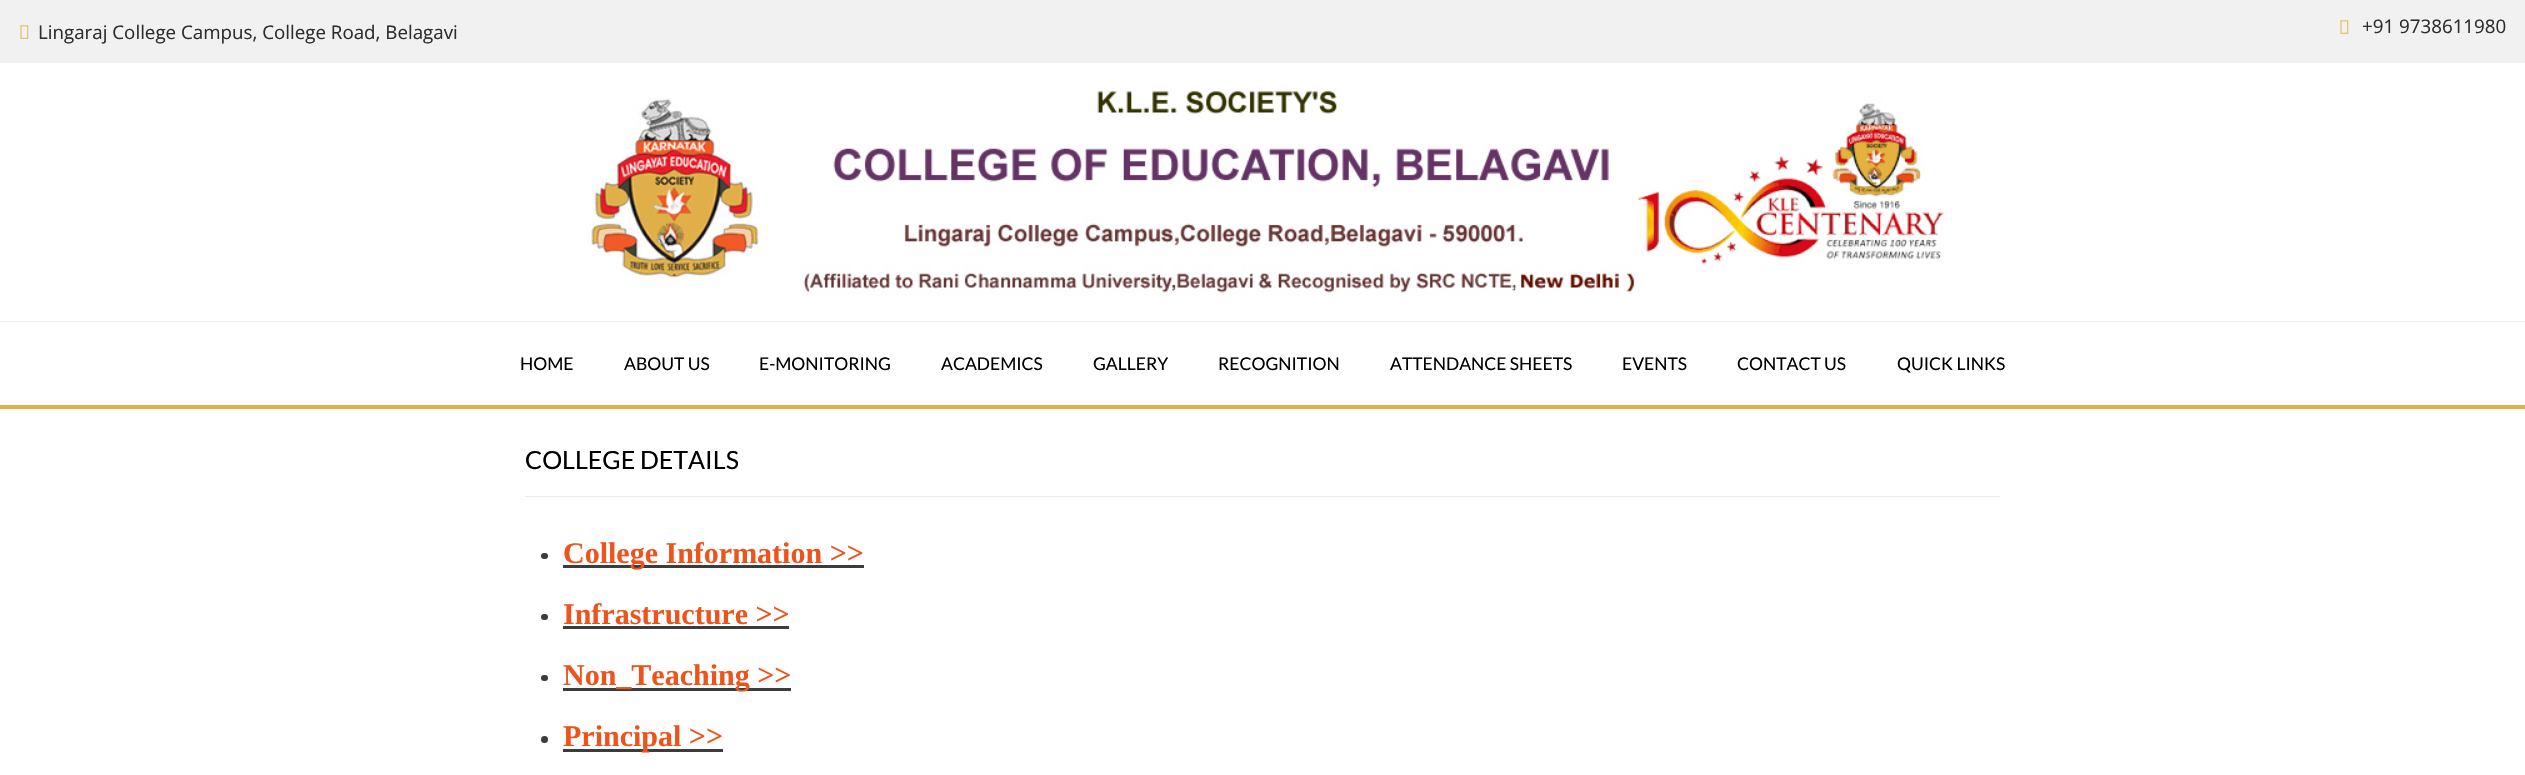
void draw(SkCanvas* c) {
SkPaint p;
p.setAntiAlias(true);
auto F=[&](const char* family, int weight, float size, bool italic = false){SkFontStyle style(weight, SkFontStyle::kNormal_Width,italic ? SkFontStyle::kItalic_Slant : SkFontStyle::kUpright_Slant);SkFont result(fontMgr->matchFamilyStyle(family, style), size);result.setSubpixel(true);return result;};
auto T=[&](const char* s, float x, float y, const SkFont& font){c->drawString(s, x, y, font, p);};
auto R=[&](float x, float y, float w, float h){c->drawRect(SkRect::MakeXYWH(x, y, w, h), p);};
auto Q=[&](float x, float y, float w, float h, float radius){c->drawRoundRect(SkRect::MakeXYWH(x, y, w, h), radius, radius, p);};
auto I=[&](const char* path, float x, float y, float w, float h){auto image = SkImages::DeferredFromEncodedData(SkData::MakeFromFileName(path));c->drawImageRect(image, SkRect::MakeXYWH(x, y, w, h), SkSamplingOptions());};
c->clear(0xffffffff);
p.setColor(0xfff1f1f1);
R(0,0,2525,63);
I("1.png",20,25,9,14);
auto f1 = F("Open Sans",400,18.75);
p.setColor(0xff2d2d2d);
T("Lingaraj College Campus, College Road, Belagavi",38,39,f1);
I("1.png",2340,20,9,14);
T("+91 9738611980",2362,33,f1);
I("2.png",586,85,1358,210);
p.setColor(0xffefefef);
R(0,321,2525,1);
p.setColor(0xffe1af4c);
R(0,405,2525,4);
auto f2 = F("Lato",400,17.5);
p.setColor(0xff000000);
T("HOME",520,370,f2);
T("ABOUT US",624,370,f2);
T("E-MONITORING",759,370,f2);
T("ACADEMICS",941,370,f2);
T("GALLERY",1093,370,f2);
T("RECOGNITION",1218,370,f2);
T("ATTENDANCE SHEETS",1390,370,f2);
T("EVENTS",1622,370,f2);
T("CONTACT US",1737,370,f2);
T("QUICK LINKS",1897,370,f2);
p.setColor(0xffebebeb);
R(525,496,1475,1);
auto f3 = F("Lato",400,25);
p.setColor(0xff000000);
T("COLLEGE DETAILS",525,469,f3);
p.setColor(0xff3c3c3c);
Q(541,553,7,6,3);
R(563,565,301,3);
auto f4 = F("Liberation Serif",700,30);
p.setColor(0xffed541c);
T("College Information >>",563,563,f4);
p.setColor(0xff3c3c3c);
Q(541,614,7,6,3);
p.setColor(0xffed541c);
T("Infrastructure >>",563,624,f4);
p.setColor(0xff3c3c3c);
R(563,626,226,3);
Q(541,675,7,6,3);
R(563,688,228,3);
p.setColor(0xffed541c);
T("Non_Teaching >>",563,685,f4);
p.setColor(0xff3c3c3c);
c->drawCircle(544.5,739.5,3.5,p);
R(563,749,160,3);
p.setColor(0xffed541c);
T("Principal >>",563,746,f4);
}
